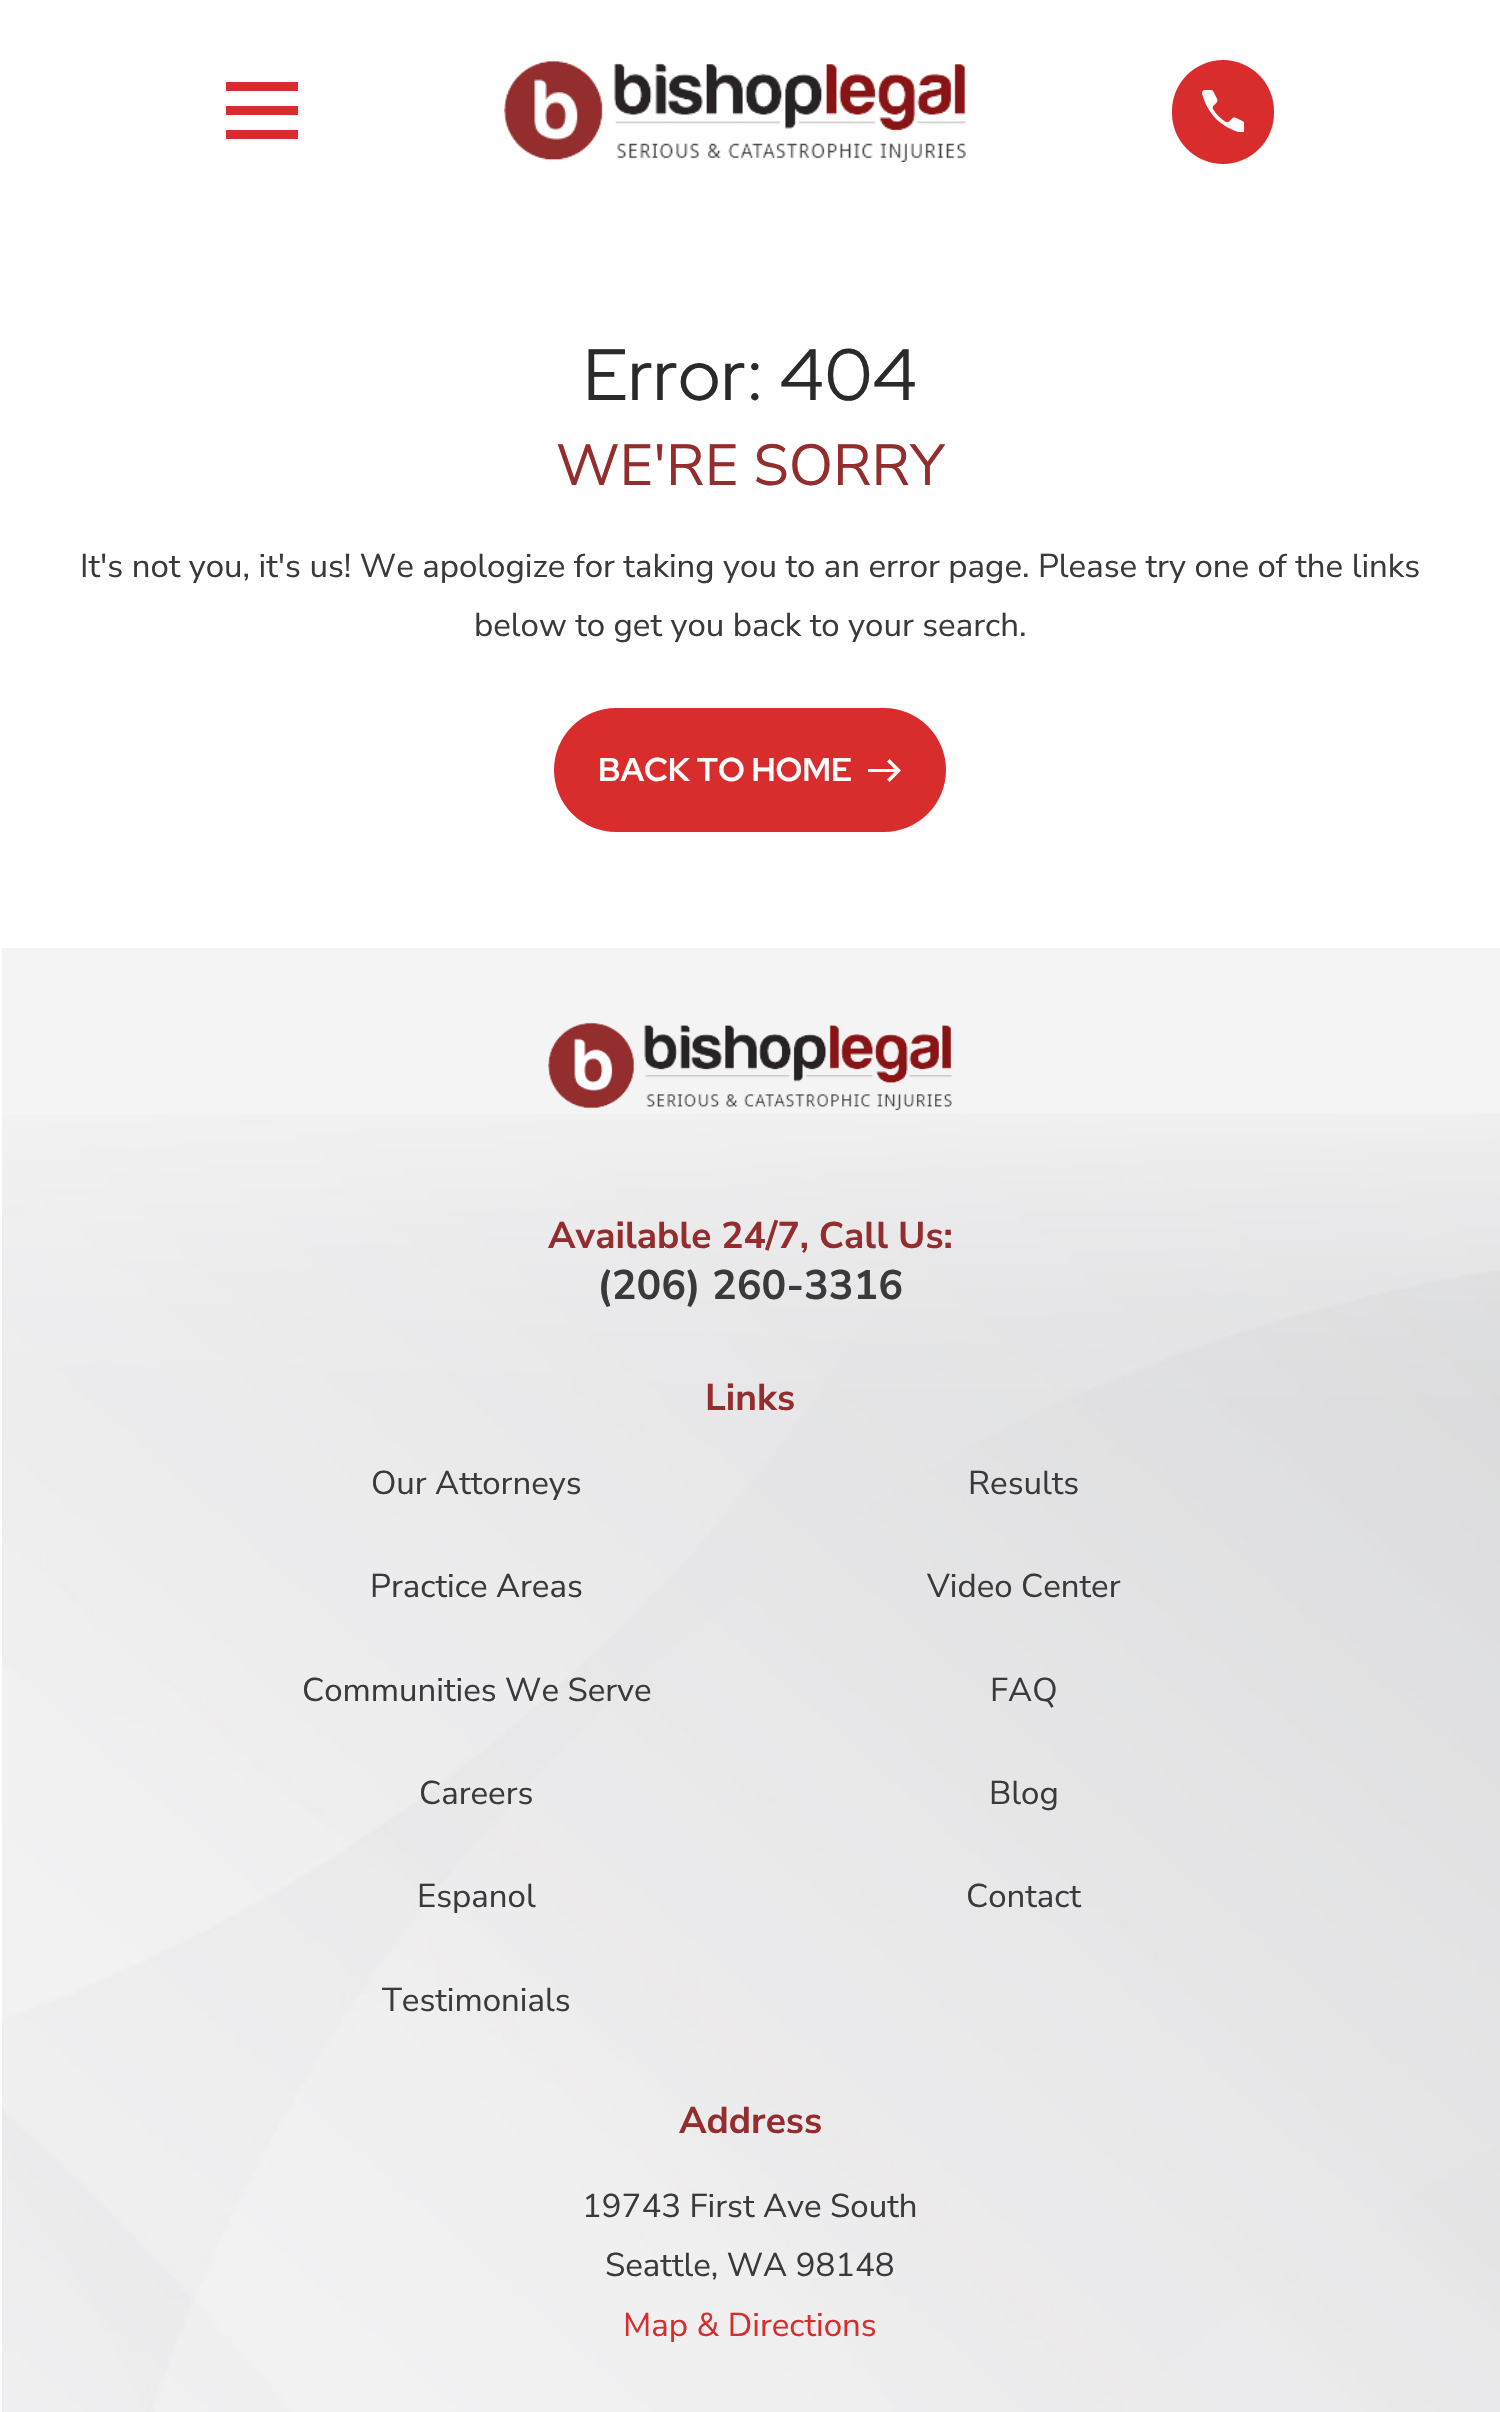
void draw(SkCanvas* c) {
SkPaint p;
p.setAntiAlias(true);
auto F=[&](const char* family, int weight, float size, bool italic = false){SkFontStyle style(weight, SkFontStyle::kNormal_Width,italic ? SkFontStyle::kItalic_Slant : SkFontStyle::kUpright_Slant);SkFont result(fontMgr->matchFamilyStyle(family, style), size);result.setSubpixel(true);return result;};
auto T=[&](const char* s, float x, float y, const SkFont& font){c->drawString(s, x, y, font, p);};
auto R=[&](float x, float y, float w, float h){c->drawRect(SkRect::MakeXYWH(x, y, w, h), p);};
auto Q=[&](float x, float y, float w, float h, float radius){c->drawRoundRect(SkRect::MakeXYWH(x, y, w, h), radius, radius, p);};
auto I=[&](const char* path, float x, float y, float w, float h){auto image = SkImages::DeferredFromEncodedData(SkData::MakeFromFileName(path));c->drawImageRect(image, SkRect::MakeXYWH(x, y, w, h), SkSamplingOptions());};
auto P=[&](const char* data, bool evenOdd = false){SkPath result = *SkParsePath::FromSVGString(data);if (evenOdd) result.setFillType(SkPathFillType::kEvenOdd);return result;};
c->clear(0xffffffff);
c->save();
c->clipRect(SkRect::MakeXYWH(226,74,72,74));
p.setColor(0xffd82c2d);
c->drawPath(P("M226 82v9h73v-9zm0 24v9h73v-9zm0 24v9h73v-9z"),p);
c->restore();
I("1.png",504,60,462,102);
Q(1172,60,102,104,51);
I("2.png",1202,90,42,42);
auto f1 = F("Red Hat Display",400,72.5);
p.setColor(0xff2a2a2a);
T("Error: 404",583,400,f1);
auto f2 = F("Nunito Sans",400,57.75);
p.setColor(0xff942d2e);
T("WE'RE SORRY",556,485,f2);
auto f3 = F("Nunito Sans",400,33);
p.setColor(0xff3a3a3a);
T("It's not you, it's us! We apologize for taking you to an error page. Please try one of the links",80,577,f3);
T("below to get you back to your search.",474,636,f3);
p.setColor(0xffd82c2d);
Q(554,708,392,124,62);
auto f4 = F("Red Hat Display",700,33);
p.setColor(0xffffffff);
T("BACK TO HOME",598,781,f4);
c->drawPath(P("M889.5 759l-2.5 2.5l7.5 7.5h-26.5v3h26.5l-7.5 7.5l2.5 2.5l11.5-11.5z"),p);
p.setColor(0xfff4f4f4);
R(2,948,1498,166);
I("3.png",2,1114,1498,1298);
I("4.png",548,1022,404,88);
auto f5 = F("Nunito Sans",700,37.1);
p.setColor(0xff942d2e);
T("Available 24/7, Call Us:",548,1248,f5);
auto f6 = F("Nunito Sans",700,41.25);
p.setColor(0xff3a3a3a);
T("(206) 260-3316",597,1299,f6);
p.setColor(0xff942d2e);
T("Links",705,1410,f5);
p.setColor(0xff3a3a3a);
T("Our Attorneys",371,1494,f3);
T("Results",968,1494,f3);
T("Practice Areas",370,1597,f3);
T("Video Center",927,1597,f3);
T("Communities We Serve",302,1701,f3);
T("FAQ",990,1701,f3);
T("Careers",419,1804,f3);
T("Blog",989,1804,f3);
T("Espanol",417,1907,f3);
T("Contact",966,1907,f3);
T("Testimonials",382,2011,f3);
p.setColor(0xff942d2e);
T("Address",679,2133,f5);
p.setColor(0xff3a3a3a);
T("19743 First Ave South",582,2217,f3);
T("Seattle, WA 98148",605,2276,f3);
p.setColor(0xffd82c2d);
T("Map & Directions",623,2336,f3);
}
